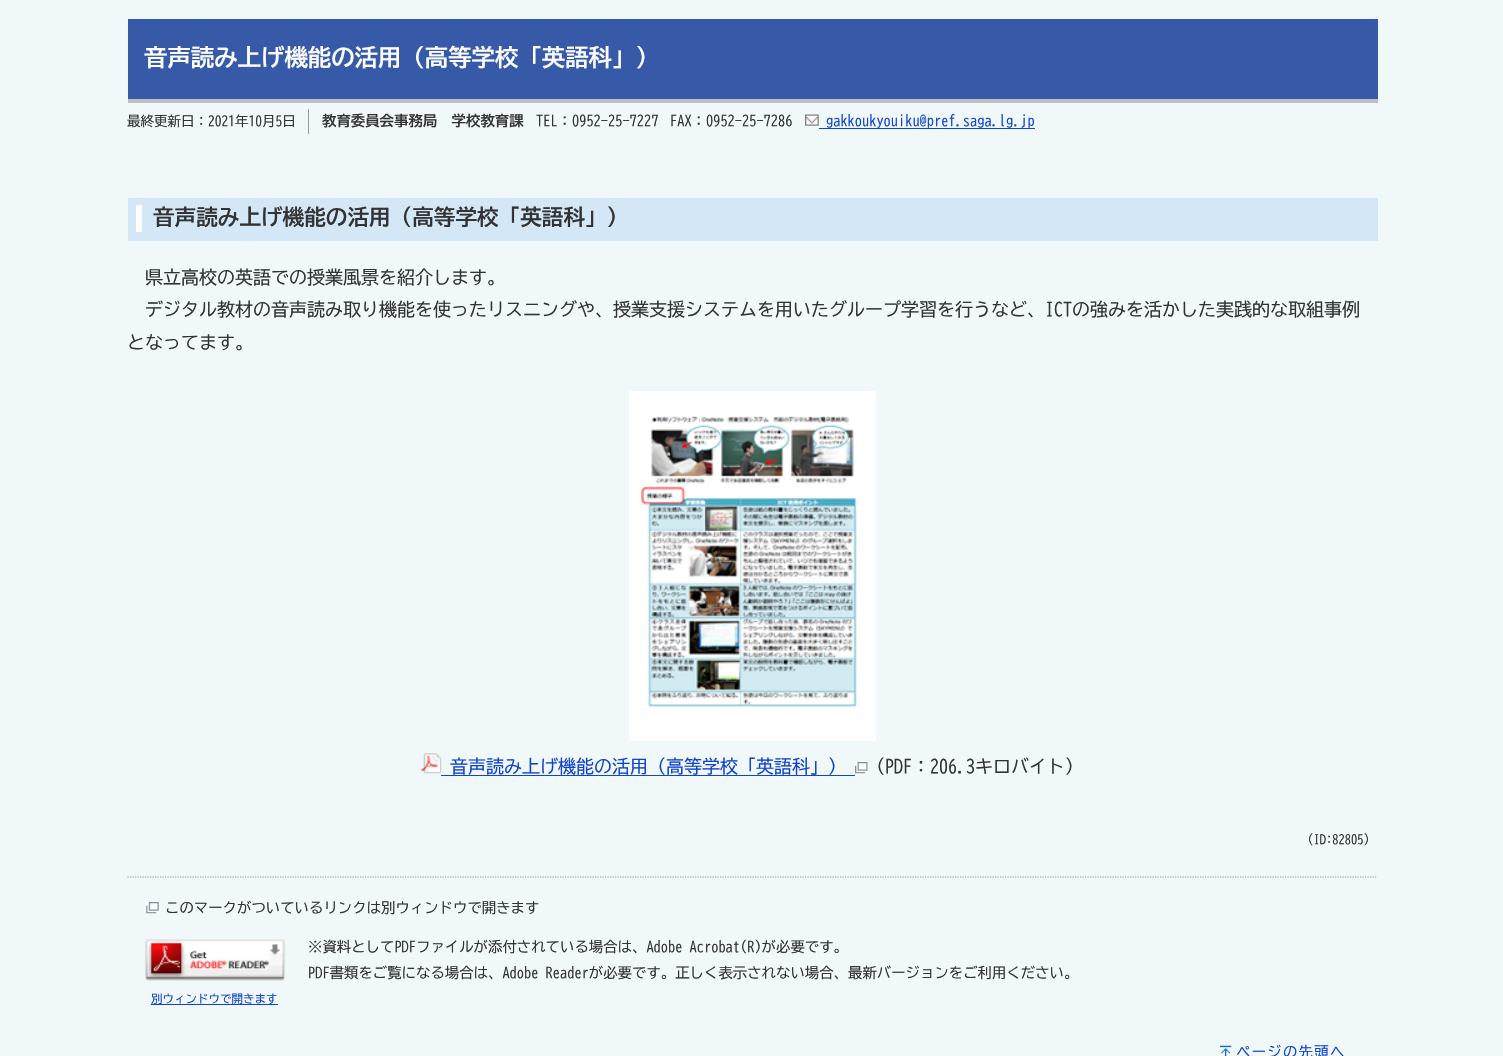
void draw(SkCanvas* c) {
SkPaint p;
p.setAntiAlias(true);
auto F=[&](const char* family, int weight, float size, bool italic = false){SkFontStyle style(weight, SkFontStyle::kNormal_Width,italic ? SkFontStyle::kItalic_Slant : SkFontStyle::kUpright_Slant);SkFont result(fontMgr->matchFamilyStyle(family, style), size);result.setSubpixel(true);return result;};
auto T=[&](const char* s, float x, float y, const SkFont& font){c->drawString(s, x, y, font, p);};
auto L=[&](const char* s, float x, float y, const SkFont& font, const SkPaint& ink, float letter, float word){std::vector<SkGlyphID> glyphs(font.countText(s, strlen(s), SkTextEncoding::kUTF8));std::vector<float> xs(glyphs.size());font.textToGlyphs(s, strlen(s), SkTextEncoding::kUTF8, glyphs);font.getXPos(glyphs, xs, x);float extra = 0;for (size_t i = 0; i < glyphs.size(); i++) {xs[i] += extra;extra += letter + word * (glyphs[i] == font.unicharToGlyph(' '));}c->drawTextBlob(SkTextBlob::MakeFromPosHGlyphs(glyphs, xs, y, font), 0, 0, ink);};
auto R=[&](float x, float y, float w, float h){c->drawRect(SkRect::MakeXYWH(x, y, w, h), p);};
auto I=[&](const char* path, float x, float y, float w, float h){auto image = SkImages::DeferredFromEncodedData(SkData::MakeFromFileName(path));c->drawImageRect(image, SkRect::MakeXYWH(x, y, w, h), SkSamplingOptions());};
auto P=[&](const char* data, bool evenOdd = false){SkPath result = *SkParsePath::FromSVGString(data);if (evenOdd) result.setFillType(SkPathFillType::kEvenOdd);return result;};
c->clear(0xfff0f8fa);
p.setColor(0xff365aa8);
R(128,19,1250,80);
p.setColor(0xffbebec0);
R(128,99,1250,4);
auto f1 = F("BIZ UDGothic",700,23.4);
p.setColor(0xffffffff);
T("音声読み上げ機能の活用（高等学校「英語科」）",144,66,f1);
auto f2 = F("BIZ UDGothic",400,13.5);
p.setColor(0xff333333);
T("最終更新日：2021年10月5日",127,126,f2);
p.setColor(0xff999999);
R(308,109,1,25);
auto f3 = F("BIZ UDGothic",700,14.4);
p.setColor(0xff333333);
T("教育委員会事務局　学校教育課",322,126,f3);
auto f4 = F("BIZ UDGothic",400,14.4);
T("TEL：0952-25-7227",536,126,f4);
T("FAX：0952-25-7286",670,126,f4);
I("1.png",805,114,14,12);
p.setColor(0xff1144cc);
T("gakkoukyouiku@pref.saga.lg.jp",826,126,f4);
R(819,128,216,1);
p.setColor(0xffd3e7f7);
R(128,198,1250,43);
p.setColor(0xffffffff);
R(136,205,6,27);
auto f5 = F("BIZ UDGothic",700,21.6);
p.setColor(0xff333333);
T("音声読み上げ機能の活用（高等学校「英語科」）",153,225,f5);
auto f6 = F("BIZ UDGothic",400,18);
T("県立高校の英語での授業風景を紹介します。",145,284,f6);
T("デジタル教材の音声読み取り機能を使ったリスニングや、授業支援システムを用いたグループ学習を行うなど、ICTの強みを活かした実践的な取組事例",145,316,f6);
T("となってます。",127,349,f6);
I("2.png",629,391,247,350);
I("3.png",421,753,21,21);
p.setColor(0xff1144cc);
T("音声読み上げ機能の活用（高等学校「英語科」）",450,773,f6);
R(441,775,414,1);
I("4.png",855,762,13,12);
p.setColor(0xff333333);
T("（PDF：206.3キロバイト）",867,773,f6);
auto f7 = F("BIZ UDGothic",400,12.5);
T("（ID:82805）",1301,844,f7);
p.setStroke(true);
p.setStrokeWidth(1.2);
p.setColor(0xff999999);
p.setPathEffect(SkDashPathEffect::Make({{1.25f,1.25f}}, 0));
c->drawPath(P("M127.5 877h1250"),p);
p.setPathEffect(nullptr);
I("5.png",146,902,13,12);
p.setStroke(false);
p.setColor(0xff333333);
T("このマークがついているリンクは別ウィンドウで開きます",165,913,f4);
T("※資料としてPDFファイルが添付されている場合は、Adobe Acrobat(R)が必要です。",308,952,f4);
T("PDF書類をご覧になる場合は、Adobe Readerが必要です。正しく表示されない場合、最新バージョンをご利用ください。",308,978,f4);
I("6.png",145,939,140,42);
p.setColor(0xff1144cc);
R(151,1004,127,1);
auto f8 = F("BIZ UDGothic",400,11.5);
T("別ウィンドウで開きます",151,1003,f8);
I("7.png",1220,1045,12,11);
L("ページの先頭へ",1236,1057,f4,p,1.25,0);
}
